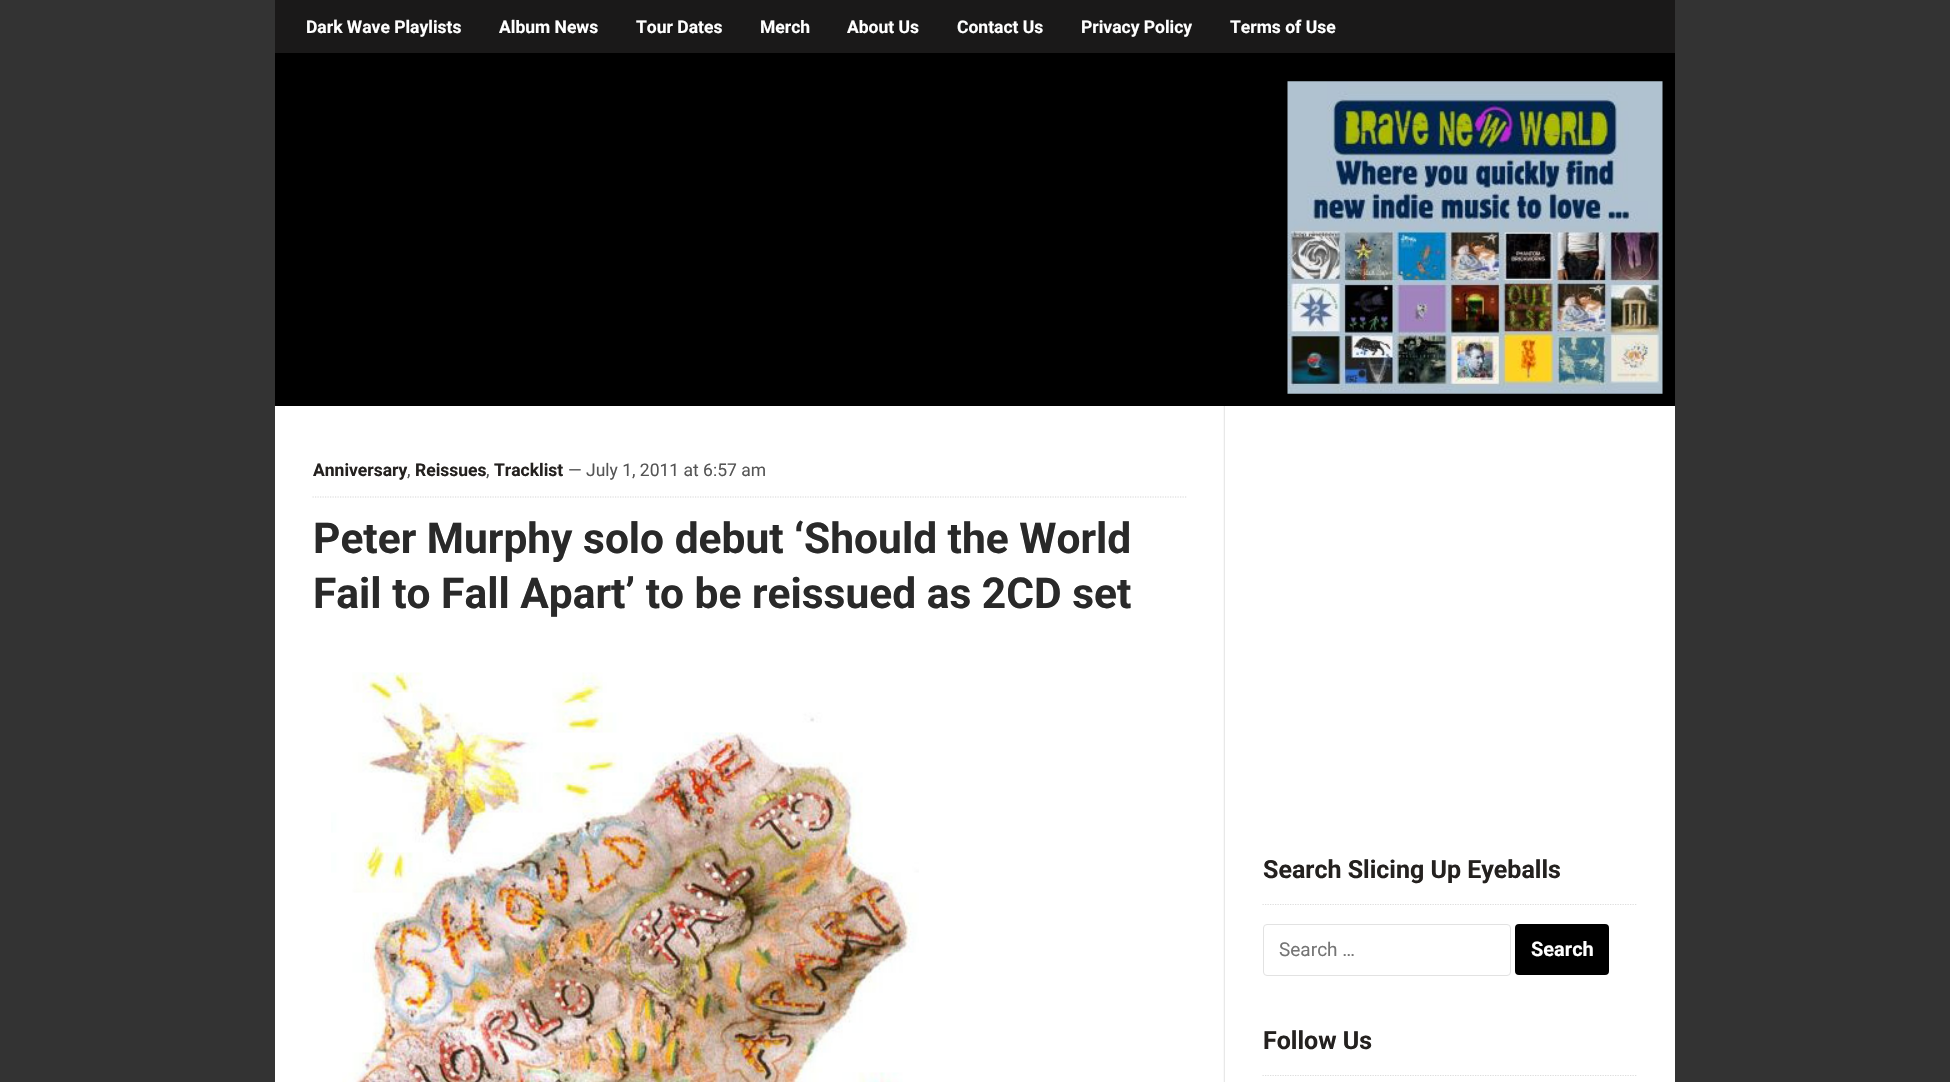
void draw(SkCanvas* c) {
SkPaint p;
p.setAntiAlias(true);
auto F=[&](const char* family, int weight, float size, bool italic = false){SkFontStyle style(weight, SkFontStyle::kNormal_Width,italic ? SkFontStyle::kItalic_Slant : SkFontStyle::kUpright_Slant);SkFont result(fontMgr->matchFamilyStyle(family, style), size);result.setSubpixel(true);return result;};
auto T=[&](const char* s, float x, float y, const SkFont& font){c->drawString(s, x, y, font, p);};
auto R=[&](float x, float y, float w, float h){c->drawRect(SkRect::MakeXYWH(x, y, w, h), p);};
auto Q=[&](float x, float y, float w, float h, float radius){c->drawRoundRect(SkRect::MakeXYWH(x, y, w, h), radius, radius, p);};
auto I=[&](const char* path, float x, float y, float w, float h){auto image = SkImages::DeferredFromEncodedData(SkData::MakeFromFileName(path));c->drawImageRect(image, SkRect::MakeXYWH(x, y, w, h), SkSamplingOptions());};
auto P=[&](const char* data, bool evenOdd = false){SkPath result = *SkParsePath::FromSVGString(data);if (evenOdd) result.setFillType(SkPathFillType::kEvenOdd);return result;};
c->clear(0xff333333);
p.setColor(0xffffffff);
R(275,406,1400,676);
I("1.png",1223,406,2,676);
p.setColor(0xff000000);
R(275,53,1400,353);
p.setColor(0xff1a1919);
R(275,0,1400,53);
auto f1 = F("Roboto",700,17.5);
p.setColor(0xffffffff);
T("Dark Wave Playlists",306,33,f1);
T("Album News",499,33,f1);
T("Tour Dates",636,33,f1);
T("Merch",760,33,f1);
T("About Us",847,33,f1);
T("Contact Us",957,33,f1);
T("Privacy Policy",1081,33,f1);
T("Terms of Use",1230,33,f1);
I("2.png",1287,81,376,313);
p.setStroke(true);
p.setStrokeWidth(1.2);
p.setColor(0xffd7d7d7);
p.setPathEffect(SkDashPathEffect::Make({{1.25f,1.25f}}, 0));
c->drawPath(P("M312.5 497h875"),p);
p.setPathEffect(nullptr);
p.setStroke(false);
p.setColor(0xff24211f);
T("Anniversary",313,476,f1);
auto f2 = F("Roboto",400,17.5);
p.setColor(0xff555555);
T(",",407,476,f2);
p.setColor(0xff24211f);
T("Reissues",415,476,f1);
p.setColor(0xff555555);
T(",",486,476,f2);
p.setColor(0xff24211f);
T("Tracklist",494,476,f1);
p.setColor(0xff555555);
T("— July 1, 2011 at 6:57 am",568,476,f2);
auto f3 = F("Roboto",700,42.5);
p.setColor(0xff292929);
T("Peter Murphy solo debut ‘Should the World",313,553,f3);
T("Fail to Fall Apart’ to be reissued as 2CD set",313,608,f3);
I("3.png",331,672,588,410);
p.setStroke(true);
p.setColor(0xffdddddd);
p.setPathEffect(SkDashPathEffect::Make({{1.25f,1.25f}}, 0));
c->drawPath(P("M1262.5 904.5h375"),p);
p.setPathEffect(nullptr);
auto f4 = F("Roboto",700,25);
p.setStroke(false);
p.setColor(0xff24211f);
T("Search Slicing Up Eyeballs",1263,878,f4);
p.setStroke(true);
p.setStrokeWidth(1);
p.setColor(0xffe2e2e2);
c->drawRoundRect(SkRect::MakeXYWH(1263.5,924.5,247,51),3.5,3.5,p);
auto f5 = F("Roboto",400,19);
p.setStroke(false);
p.setColor(0xff757575);
T("Search …",1279,956,f5);
p.setColor(0xff000000);
Q(1515,924,94,51,4);
auto f6 = F("Roboto",700,20);
p.setColor(0xffffffff);
T("Search",1531,956,f6);
p.setStroke(true);
p.setStrokeWidth(1.2);
p.setColor(0xffdddddd);
p.setPathEffect(SkDashPathEffect::Make({{1.25f,1.25f}}, 0));
c->drawPath(P("M1262.5 1075.5h375"),p);
p.setPathEffect(nullptr);
p.setStroke(false);
p.setColor(0xff24211f);
T("Follow Us",1263,1049,f4);
}
